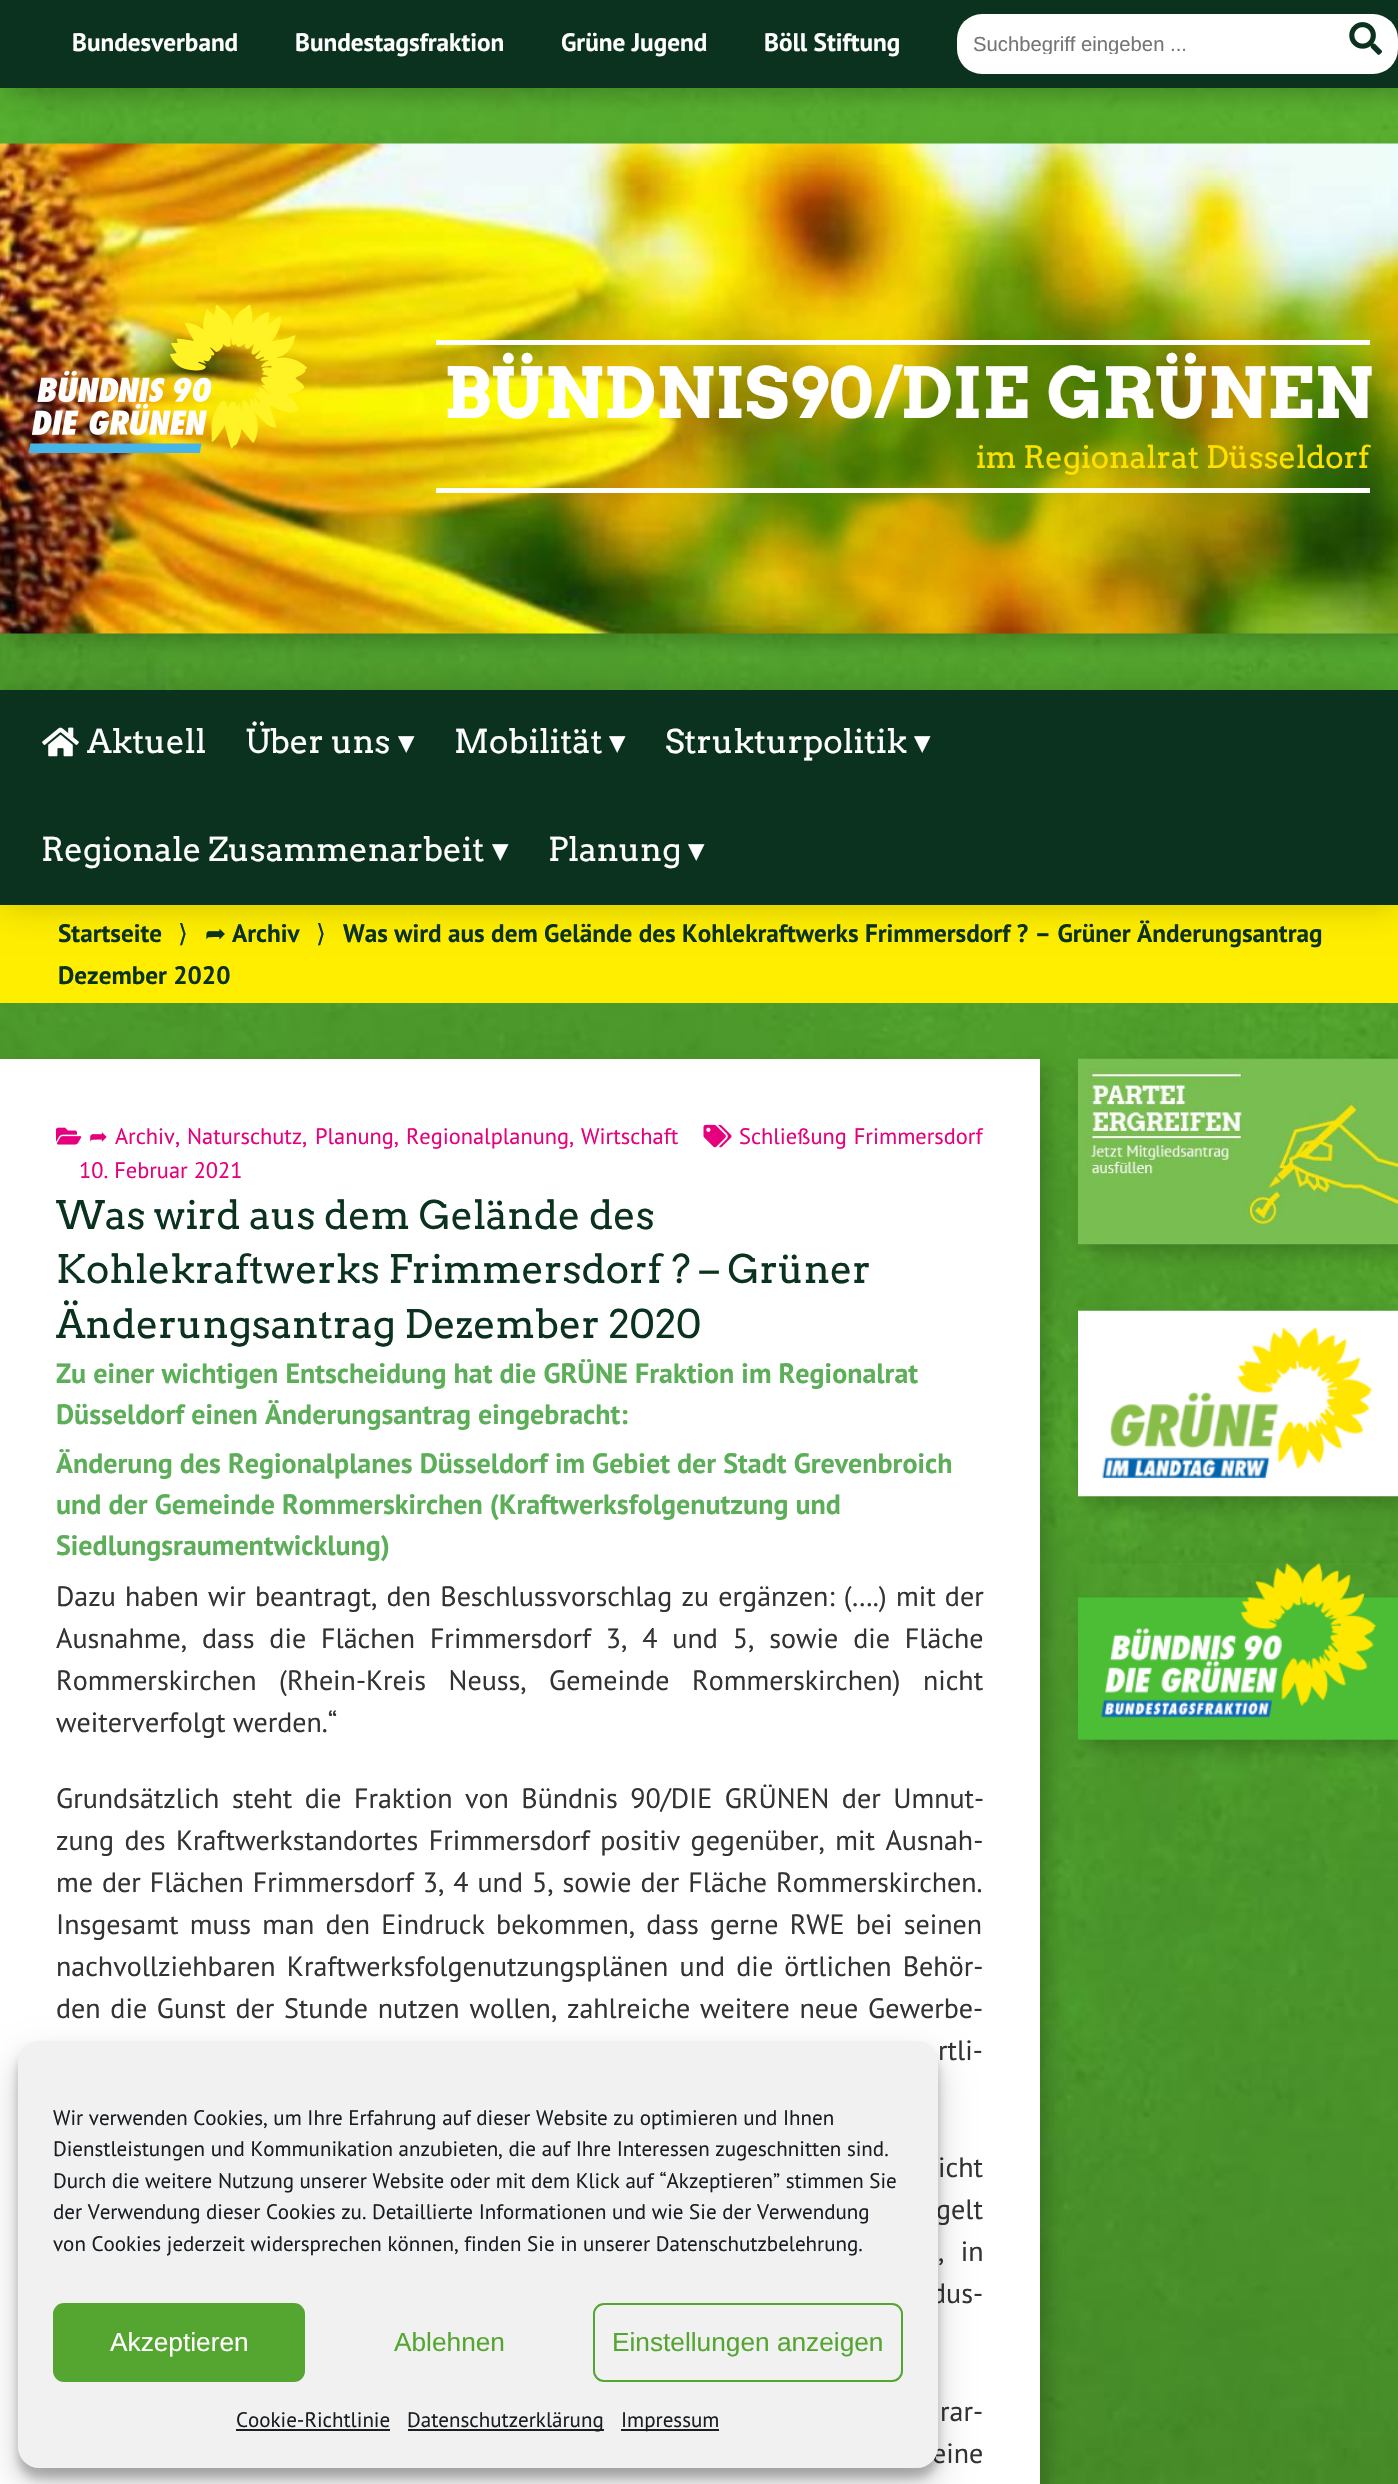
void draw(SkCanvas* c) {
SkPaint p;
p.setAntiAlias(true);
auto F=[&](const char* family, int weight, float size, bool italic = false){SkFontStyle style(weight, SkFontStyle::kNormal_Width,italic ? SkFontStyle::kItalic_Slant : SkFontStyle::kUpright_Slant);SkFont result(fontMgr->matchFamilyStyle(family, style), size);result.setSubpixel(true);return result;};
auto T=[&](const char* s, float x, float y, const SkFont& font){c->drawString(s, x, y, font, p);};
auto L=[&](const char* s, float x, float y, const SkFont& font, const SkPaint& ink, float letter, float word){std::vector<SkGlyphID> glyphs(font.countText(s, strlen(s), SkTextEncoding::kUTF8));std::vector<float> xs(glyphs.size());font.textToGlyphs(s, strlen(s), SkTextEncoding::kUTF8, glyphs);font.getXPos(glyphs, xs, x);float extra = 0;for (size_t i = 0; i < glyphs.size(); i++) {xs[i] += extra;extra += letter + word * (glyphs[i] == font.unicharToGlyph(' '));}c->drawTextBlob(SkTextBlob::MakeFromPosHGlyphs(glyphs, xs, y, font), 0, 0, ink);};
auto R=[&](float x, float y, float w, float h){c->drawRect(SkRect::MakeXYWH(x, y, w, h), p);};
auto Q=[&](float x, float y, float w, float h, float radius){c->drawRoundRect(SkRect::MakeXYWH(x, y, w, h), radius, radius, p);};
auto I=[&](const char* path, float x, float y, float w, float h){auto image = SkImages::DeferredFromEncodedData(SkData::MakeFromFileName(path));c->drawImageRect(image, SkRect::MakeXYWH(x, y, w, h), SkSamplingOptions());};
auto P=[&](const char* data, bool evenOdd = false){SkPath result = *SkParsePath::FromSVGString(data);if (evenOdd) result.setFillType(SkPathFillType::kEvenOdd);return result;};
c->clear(0xffffffff);
I("1.png",0,88,1398,2396);
p.setColor(0x33000000);
p.setMaskFilter(SkMaskFilter::MakeBlur(kNormal_SkBlurStyle, 9));
c->drawRect(SkRect::MakeXYWH(9,9,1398,87),p);
p.setMaskFilter(nullptr);
p.setColor(0xff0a321e);
R(0,0,1398,88);
auto f1 = F("PT Sans",700,25.2);
p.setColor(0xffffffff);
T("Bundesverband",72,51,f1);
T("Bundestagsfraktion",295,51,f1);
T("Grüne Jugend",561,51,f1);
T("Böll Stiftung",764,51,f1);
Q(957,14,441,60,25);
c->save();
c->clipRect(SkRect::MakeXYWH(973,33,350,21));
auto f2 = F("Liberation Sans",400,20.25);
p.setColor(0xff757575);
T("Suchbegriff eingeben ...",973,51,f2);
c->restore();
I("2.png",1349,22,33,33);
p.setColor(0x33000000);
p.setMaskFilter(SkMaskFilter::MakeBlur(kNormal_SkBlurStyle, 9));
c->drawRect(SkRect::MakeXYWH(9,152,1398,490),p);
p.setMaskFilter(nullptr);
I("3.png",0,143,1398,491);
I("4.png",28,305,279,148);
p.setColor(0xffffffff);
R(436,340,934,5);
R(436,488,934,5);
auto f3 = F("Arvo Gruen",400,70);
T("BÜNDNIS90/DIE GRÜNEN",444,418,f3);
auto f4 = F("Arvo",400,30.75);
p.setColor(0xffffe000);
T("im Regionalrat Düsseldorf",976,468,f4);
p.setColor(0xffffee00);
R(0,905,1398,98);
p.setColor(0x33000000);
p.setMaskFilter(SkMaskFilter::MakeBlur(kNormal_SkBlurStyle, 17.5));
c->drawRect(SkRect::MakeXYWH(0,690,1398,215),p);
p.setMaskFilter(nullptr);
p.setColor(0xff0a321e);
R(0,690,1398,215);
I("5.png",42,727,37,30);
auto f5 = F("Arvo",400,32.75);
p.setColor(0xffffffff);
T("Aktuell",87,753,f5);
T("Über uns",245,753,f5);
auto f6 = F("DejaVu Sans",400,32.75);
T("▾",398,753,f6);
T("Mobilität",454,753,f5);
T("▾",609,753,f6);
T("Strukturpolitik",665,753,f5);
T("▾",914,753,f6);
T("Regionale Zusammenarbeit",41,861,f5);
T("▾",492,861,f6);
T("Planung",548,861,f5);
T("▾",688,861,f6);
p.setColor(0xff0a321e);
T("Startseite",58,942,f1);
auto f7 = F("DejaVu Sans",400,25.2);
T("⟩",178,942,f7);
T("➦",205,942,f7);
T("Archiv",232,942,f1);
T("⟩",316,942,f7);
T("Was wird aus dem Gelände des Kohlekraftwerks Frimmersdorf ? – Grüner Änderungsantrag",343,942,f1);
T("Dezember 2020",58,984,f1);
p.setColor(0x33000000);
p.setMaskFilter(SkMaskFilter::MakeBlur(kNormal_SkBlurStyle, 9));
c->drawRect(SkRect::MakeXYWH(9,1068,1039,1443),p);
p.setMaskFilter(nullptr);
p.setColor(0xffffffff);
R(0,1059,1040,1425);
I("6.png",56,1127,26,18);
auto f8 = F("DejaVu Sans",400,22.4);
p.setColor(0xffe6007e);
T("➦",89,1144,f8);
auto f9 = F("PT Sans",400,22.4);
T("Archiv,",115,1144,f9);
T("Naturschutz,",187,1144,f9);
T("Planung,",315,1144,f9);
T("Regionalplanung,",406,1144,f9);
T("Wirtschaft",581,1144,f9);
I("7.png",703,1124,29,24);
L("Schließung Frimmersdorf",739,1144,f9,p,0,1);
T("10. Februar 2021",79,1178,f9);
auto f10 = F("Arvo",400,39.2);
p.setColor(0xff0a321e);
T("Was wird aus dem Gelände des",56,1229,f10);
T("Kohlekraftwerks Frimmersdorf ? – Grüner",56,1283,f10);
T("Änderungsantrag Dezember 2020",56,1338,f10);
auto f11 = F("PT Sans",700,28);
p.setColor(0xff5dae59);
T("Zu einer wichtigen Entscheidung hat die GRÜNE Fraktion im Regionalrat",56,1383,f11);
T("Düsseldorf einen Änderungsantrag eingebracht:",56,1424,f11);
T("Änderung des Regionalplanes Düsseldorf im Gebiet der Stadt Grevenbroich",56,1473,f11);
T("und der Gemeinde Rommerskirchen (Kraftwerksfolgenutzung und",56,1514,f11);
T("Siedlungsraumentwicklung)",56,1555,f11);
auto f12 = F("PT Sans",400,28);
p.setColor(0xff333333);
L("Dazu haben wir beantragt, den Beschlussvorschlag zu ergänzen: (….) mit der",56,1606,f12,p,0,1.75);
L("Ausnahme, dass die Flächen Frimmersdorf 3, 4 und 5, sowie die Fläche",56,1648,f12,p,0,7.4);
L("Rommerskirchen (Rhein-Kreis Neuss, Gemeinde Rommerskirchen) nicht",56,1690,f12,p,0,15);
T("weiterverfolgt werden.“",56,1732,f12);
L("Grundsätzlich steht die Fraktion von Bündnis 90/DIE GRÜNEN der Umnut-",56,1808,f12,p,0,5);
L("zung des Kraftwerkstandortes Frimmersdorf positiv gegenüber, mit Ausnah-",56,1850,f12,p,0,3);
L("me der Flächen Frimmersdorf 3, 4 und 5, sowie der Fläche Rommerskirchen.",56,1892,f12,p,0,1.5);
L("Insgesamt muss man den Eindruck bekommen, dass gerne RWE bei seinen",56,1934,f12,p,0,3.75);
L("nachvollziehbaren Kraftwerksfolgenutzungsplänen und die örtlichen Behör-",56,1976,f12,p,0,3.75);
L("den die Gunst der Stunde nutzen wollen, zahlreiche weitere neue Gewerbe-",56,2018,f12,p,0,2.25);
L("rtli-",938,2060,f12,p,0,1);
L("icht",938,2177,f12,p,0,4);
L("gelt",936,2219,f12,p,0,2);
L(", in",938,2261,f12,p,0,9);
L("dus-",931,2303,f12,p,0,4);
L("rar-",940,2421,f12,p,0,1);
L("eine",932,2463,f12,p,0,1);
p.setColor(0x33000000);
p.setMaskFilter(SkMaskFilter::MakeBlur(kNormal_SkBlurStyle, 9));
c->drawRect(SkRect::MakeXYWH(1087,1068,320,185),p);
p.setMaskFilter(nullptr);
I("8.png",1078,1058,320,187);
p.setMaskFilter(SkMaskFilter::MakeBlur(kNormal_SkBlurStyle, 9));
c->drawRect(SkRect::MakeXYWH(1087,1320,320,185),p);
p.setMaskFilter(nullptr);
I("9.png",1078,1310,320,187);
c->save();
c->clipPath(P("M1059 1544h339v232h-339zm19 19h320v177h-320z",true),true);
p.setMaskFilter(SkMaskFilter::MakeBlur(kNormal_SkBlurStyle, 9));
c->drawRect(SkRect::MakeXYWH(1087,1572,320,176),p);
p.setMaskFilter(nullptr);
c->restore();
I("10.png",1078,1562,320,178);
p.setColor(0x3b000000);
p.setMaskFilter(SkMaskFilter::MakeBlur(kNormal_SkBlurStyle, 5));
c->drawRoundRect(SkRect::MakeXYWH(18,2051,920,427),21,21,p);
p.setMaskFilter(nullptr);
p.setColor(0x30000000);
p.setMaskFilter(SkMaskFilter::MakeBlur(kNormal_SkBlurStyle, 17.5));
c->drawRoundRect(SkRect::MakeXYWH(18,2058,920,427),21,21,p);
p.setMaskFilter(nullptr);
p.setColor(0xfff1f1f1);
Q(18,2041,920,427,21);
auto f13 = F("PT Sans",400,21);
p.setColor(0xff191e23);
T("Wir verwenden Cookies, um Ihre Erfahrung auf dieser Website zu optimieren und Ihnen",53,2125,f13);
T("Dienstleistungen und Kommunikation anzubieten, die auf Ihre Interessen zugeschnitten sind.",53,2156,f13);
T("Durch die weitere Nutzung unserer Website oder mit dem Klick auf “Akzeptieren” stimmen Sie",53,2188,f13);
T("der Verwendung dieser Cookies zu. Detaillierte Informationen und wie Sie der Verwendung",53,2219,f13);
T("von Cookies jederzeit widersprechen können, finden Sie in unserer Datenschutzbelehrung.",53,2251,f13);
p.setColor(0xff55a631);
c->drawRoundRect(SkRect::MakeXYWH(54,2304,250,77),10,10,p);
p.setStroke(true);
p.setStrokeWidth(2);
c->drawRoundRect(SkRect::MakeXYWH(54,2304,250,77),10,10,p);
auto f14 = F("Liberation Sans",400,26.25);
p.setStroke(false);
p.setColor(0xffffffff);
T("Akzeptieren",110,2351,f14);
p.setColor(0xff55a631);
T("Ablehnen",394,2351,f14);
p.setStroke(true);
c->drawRoundRect(SkRect::MakeXYWH(594,2304,308,77),10,10,p);
p.setStroke(false);
T("Einstellungen anzeigen",612,2351,f14);
p.setColor(0xff191e23);
T("Cookie-Richtlinie",236,2427,f13);
R(236,2429,154,2);
R(408,2429,196,2);
T("Datenschutzerklärung",407,2427,f13);
R(621,2429,98,2);
T("Impressum",621,2427,f13);
}
